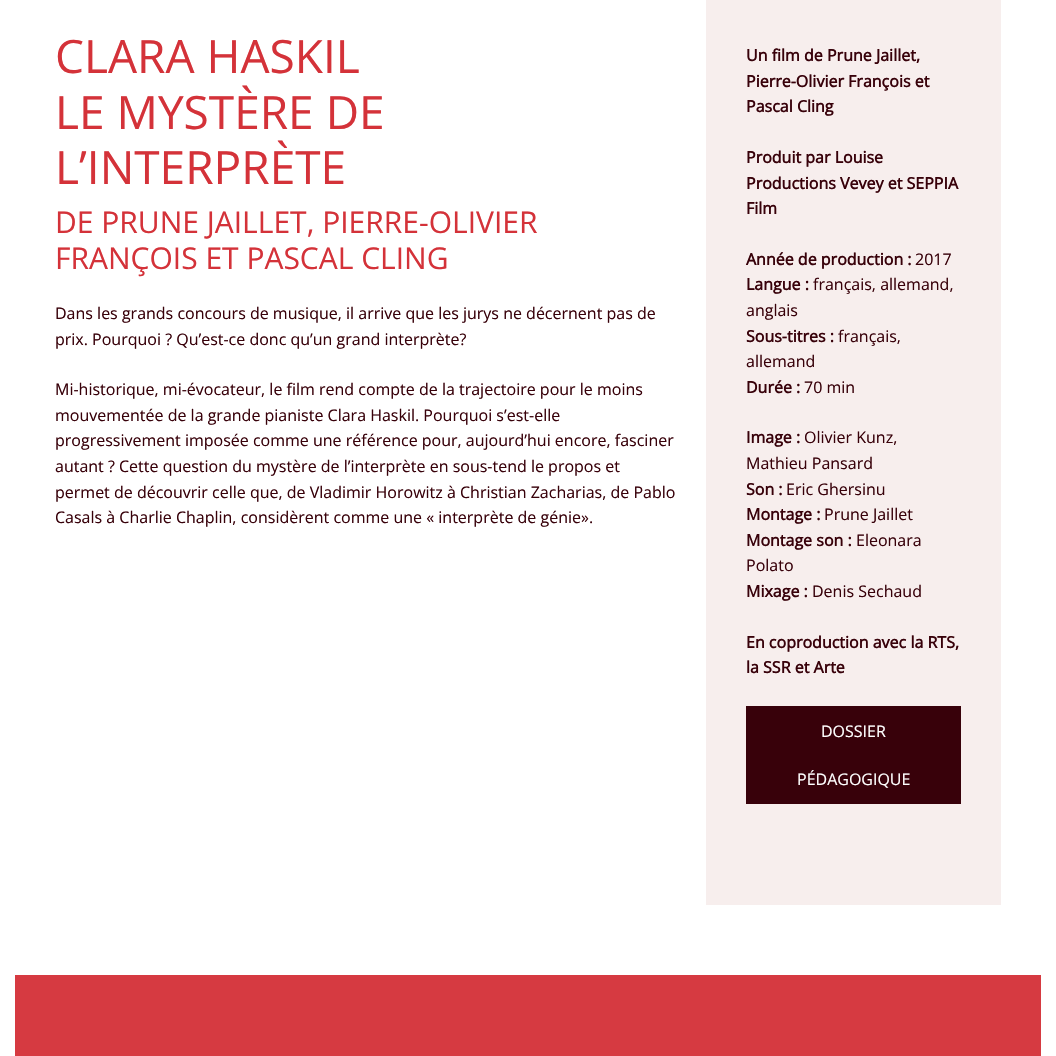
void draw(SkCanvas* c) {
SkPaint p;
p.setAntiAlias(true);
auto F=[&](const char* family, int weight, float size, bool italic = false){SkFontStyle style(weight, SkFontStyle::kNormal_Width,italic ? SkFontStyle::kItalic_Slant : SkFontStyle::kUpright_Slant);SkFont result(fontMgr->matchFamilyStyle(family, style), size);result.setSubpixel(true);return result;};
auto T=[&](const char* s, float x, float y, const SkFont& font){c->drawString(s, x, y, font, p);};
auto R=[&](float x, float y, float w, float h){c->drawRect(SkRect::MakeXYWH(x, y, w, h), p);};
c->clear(0xffffffff);
auto f1 = F("Open Sans",400,46);
p.setColor(0xffd43239);
T("CLARA HASKIL",55,73,f1);
T("LE MYSTÈRE DE",55,129,f1);
T("L’INTERPRÈTE",55,184,f1);
auto f2 = F("Open Sans",400,30);
T("DE PRUNE JAILLET, PIERRE-OLIVIER",55,233,f2);
T("FRANÇOIS ET PASCAL CLING",55,269,f2);
auto f3 = F("Open Sans",400,16);
p.setColor(0xff38010a);
T("Dans les grands concours de musique, il arrive que les jurys ne décernent pas de",55,319,f3);
T("prix. Pourquoi ? Qu’est-ce donc qu’un grand interprète?",55,345,f3);
T("Mi-historique, mi-évocateur, le film rend compte de la trajectoire pour le moins",55,395,f3);
T("mouvementée de la grande pianiste Clara Haskil. Pourquoi s’est-elle",55,421,f3);
T("progressivement imposée comme une référence pour, aujourd’hui encore, fasciner",55,446,f3);
T("autant ? Cette question du mystère de l’interprète en sous-tend le propos et",55,472,f3);
T("permet de découvrir celle que, de Vladimir Horowitz à Christian Zacharias, de Pablo",55,498,f3);
T("Casals à Charlie Chaplin, considèrent comme une « interprète de génie».",55,523,f3);
p.setColor(0xfff7eeed);
R(706,0,295,905);
auto f4 = F("Open Sans",700,16);
p.setColor(0xff38010a);
T("Un film de Prune Jaillet,",746,61,f4);
T("Pierre-Olivier François et",746,87,f4);
T("Pascal Cling",746,112,f4);
T("Produit par Louise",746,163,f4);
T("Productions Vevey et SEPPIA",746,189,f4);
T("Film",746,214,f4);
T("Année de production :",746,265,f4);
T("2017",915,265,f3);
T("Langue :",746,290,f4);
T("français, allemand,",813,290,f3);
T("anglais",746,316,f3);
T("Sous-titres :",746,342,f4);
T("français,",838,342,f3);
T("allemand",746,367,f3);
T("Durée :",746,393,f4);
T("70 min",804,393,f3);
T("Image :",746,443,f4);
T("Olivier Kunz,",804,443,f3);
T("Mathieu Pansard",746,469,f3);
T("Son :",746,495,f4);
T("Eric Ghersinu",786,495,f3);
T("Montage :",746,520,f4);
T("Prune Jaillet",824,520,f3);
T("Montage son :",746,546,f4);
T("Eleonara",856,546,f3);
T("Polato",746,571,f3);
T("Mixage :",746,597,f4);
T("Denis Sechaud",812,597,f3);
T("En coproduction avec la RTS,",746,648,f4);
T("la SSR et Arte",746,673,f4);
R(746,706,215,98);
p.setColor(0xffffffff);
T("DOSSIER",821,737,f3);
T("PÉDAGOGIQUE",797,785,f3);
p.setColor(0xffd63a41);
R(15,975,1026,81);
}
